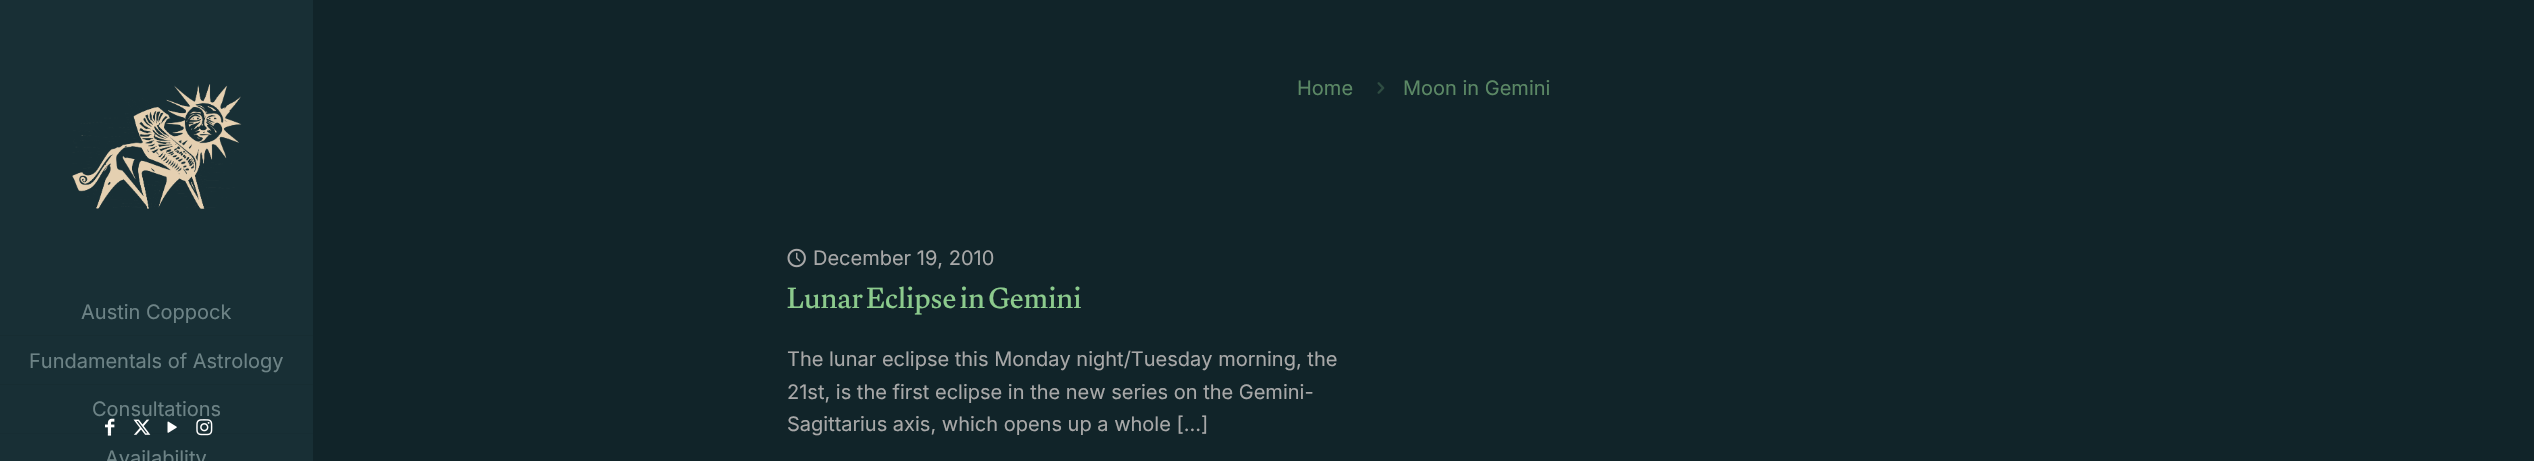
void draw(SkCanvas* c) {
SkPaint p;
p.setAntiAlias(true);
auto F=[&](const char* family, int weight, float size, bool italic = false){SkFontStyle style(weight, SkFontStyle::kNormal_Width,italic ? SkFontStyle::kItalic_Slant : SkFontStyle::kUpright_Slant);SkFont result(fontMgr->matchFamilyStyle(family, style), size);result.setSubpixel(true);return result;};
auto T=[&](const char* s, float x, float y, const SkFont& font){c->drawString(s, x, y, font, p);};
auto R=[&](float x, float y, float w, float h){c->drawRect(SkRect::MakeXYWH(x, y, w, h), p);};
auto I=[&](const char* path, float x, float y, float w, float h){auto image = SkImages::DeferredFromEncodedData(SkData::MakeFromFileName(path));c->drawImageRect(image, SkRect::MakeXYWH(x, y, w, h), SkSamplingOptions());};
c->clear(0xff112429);
p.setColor(0xff182f35);
R(0,0,313,461);
I("1.png",72,84,170,125);
p.setColor(0xff172d32);
R(0,335,313,1);
auto f1 = F("Inter",400,20);
p.setColor(0xff6d8386);
T("Austin Coppock",81,319,f1);
p.setColor(0xff172d32);
R(0,384,313,1);
p.setColor(0xff6d8386);
T("Fundamentals of Astrology",29,368,f1);
I("2.png",105,418,10,18);
I("3.png",133,419,18,16);
I("5.png",196,419,17,17);
p.setColor(0x0d000000);
R(0,433,313,1);
p.setColor(0xff6d8386);
T("Consultations",92,416,f1);
T("Availability",105,465,f1);
I("4.png",167,421,10,12);
p.setColor(0xff5b8865);
T("Home",1297,95,f1);
I("6.png",1377,82,8,12);
T("Moon in Gemini",1403,95,f1);
I("7.png",787,248,19,20);
p.setColor(0xffa8a8a8);
T("December 19, 2010",813,265,f1);
auto f2 = F("Gulzar",400,30);
p.setColor(0xff8ccb8d);
T("Lunar Eclipse in Gemini",787,308,f2);
p.setColor(0xffa8a8a8);
T("The lunar eclipse this Monday night/Tuesday morning, the",787,366,f1);
T("21st, is the first eclipse in the new series on the Gemini-",787,399,f1);
T("Sagittarius axis, which opens up a whole […]",787,431,f1);
}
